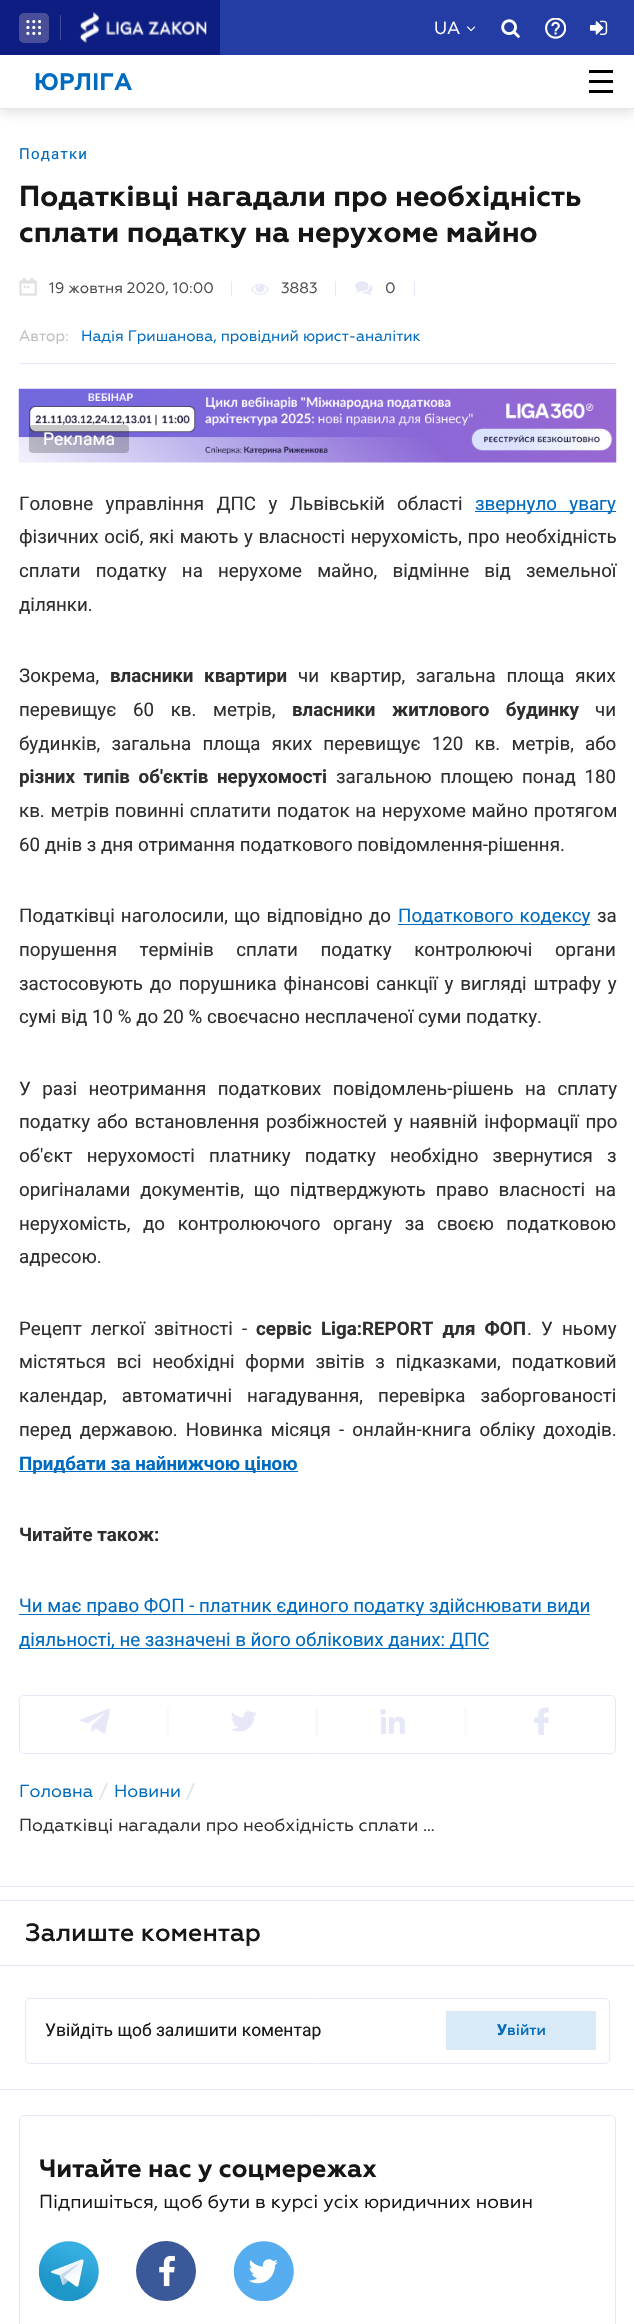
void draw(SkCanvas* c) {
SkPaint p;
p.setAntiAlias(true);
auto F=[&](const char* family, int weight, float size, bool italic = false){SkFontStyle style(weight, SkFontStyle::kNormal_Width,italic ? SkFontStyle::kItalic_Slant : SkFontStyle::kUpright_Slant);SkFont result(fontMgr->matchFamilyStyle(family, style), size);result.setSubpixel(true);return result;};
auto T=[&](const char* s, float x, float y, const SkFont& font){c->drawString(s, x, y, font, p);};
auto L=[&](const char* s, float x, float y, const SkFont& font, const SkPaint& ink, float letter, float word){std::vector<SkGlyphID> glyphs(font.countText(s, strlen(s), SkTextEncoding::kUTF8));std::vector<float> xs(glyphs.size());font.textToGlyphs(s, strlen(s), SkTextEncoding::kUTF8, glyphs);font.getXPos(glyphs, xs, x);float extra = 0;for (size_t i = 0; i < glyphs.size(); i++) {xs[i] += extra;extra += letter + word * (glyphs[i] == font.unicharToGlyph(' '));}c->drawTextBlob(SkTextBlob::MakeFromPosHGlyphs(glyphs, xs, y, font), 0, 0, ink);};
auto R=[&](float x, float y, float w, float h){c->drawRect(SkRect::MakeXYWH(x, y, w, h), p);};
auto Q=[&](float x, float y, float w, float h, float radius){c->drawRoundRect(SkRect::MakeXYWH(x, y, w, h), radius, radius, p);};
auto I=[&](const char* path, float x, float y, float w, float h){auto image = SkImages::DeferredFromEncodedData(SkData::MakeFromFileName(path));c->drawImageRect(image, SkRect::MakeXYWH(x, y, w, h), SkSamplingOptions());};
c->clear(0xffffffff);
p.setColor(0x26000000);
p.setMaskFilter(SkMaskFilter::MakeBlur(kNormal_SkBlurStyle, 6));
c->drawRect(SkRect::MakeXYWH(0,58,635,53),p);
p.setMaskFilter(nullptr);
p.setColor(0xff243da4);
R(220,0,414,55);
p.setColor(0xff0e1d82);
R(0,0,220,55);
p.setColor(0xff484f98);
Q(19,13,30,30,5);
I("1.png",26,20,15,15);
p.setColor(0xff3e4a9b);
R(60,15,1,25);
I("2.png",79,12,128,31);
auto f1 = F("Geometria",400,17.5);
p.setColor(0xffffffff);
T("UA",434,34,f1);
I("3.png",467,26,9,6);
I("4.png",501,19,19,19);
I("5.png",545,18,21,21);
I("6.png",590,20,18,15);
R(0,55,634,53);
p.setColor(0xffe6e6e6);
R(0,108,634,1);
auto f2 = F("Geometria",700,23.75);
p.setColor(0xff006bbf);
T("ЮРЛІГА",34,90,f2);
p.setColor(0xff000000);
R(589,70,24,3);
R(589,80,24,3);
R(589,90,24,3);
p.setColor(0xffe6e8f7);
R(19,363,597,1);
auto f3 = F("Roboto",400,15);
p.setColor(0xff006bbf);
L("Податки",19,159,f3,p,1.25,0);
auto f4 = F("Geometria",700,28.75);
p.setColor(0xff161616);
T("Податківці нагадали про необхідність",19,206,f4);
T("сплати податку на нерухоме майно",19,242,f4);
I("7.png",19,278,18,18);
auto f5 = F("Geometria",400,15);
p.setColor(0xff4c4c4c);
T("19 жовтня 2020, 10:00",49,293,f5);
p.setColor(0xffe6e8f7);
R(231,281,1,15);
I("8.png",251,283,18,12);
p.setColor(0xff4c4c4c);
T("3883",281,293,f5);
p.setColor(0xffe6e8f7);
R(335,281,1,15);
I("9.png",355,281,18,14);
p.setColor(0xff4c4c4c);
T("0",385,293,f5);
p.setColor(0xffe6e8f7);
R(414,281,1,15);
p.setColor(0xffbdbdbd);
T("Автор:",19,341,f5);
p.setColor(0xff006bbf);
T("Надія Гришанова, провідний юрист-аналітик",81,341,f5);
I("10.png",18,388,599,75);
p.setColor(0x38000000);
Q(29,425,100,28,4);
auto f6 = F("Roboto",400,17.5);
p.setColor(0xffffffff);
T("Реклама",43,445,f6);
auto f7 = F("Roboto",400,18.75);
p.setColor(0xff2f2f2f);
L("Головне управління ДПС у Львівській області",19,510,f7,p,0,7.75);
p.setColor(0xff006bbf);
R(475,511,141,1);
L("звернуло увагу",475,510,f7,p,0,7.75);
p.setColor(0xff2f2f2f);
L("фізичних осіб, які мають у власності нерухомість, про необхідність",19,543,f7,p,0,1);
L("сплати податку на нерухоме майно, відмінне від земельної",19,577,f7,p,0,10.5);
T("ділянки.",19,611,f7);
T("Зокрема,",19,682,f7);
auto f8 = F("Roboto",700,18.75);
L("власники квартири",110,682,f8,p,0,6);
L("чи квартир, загальна площа яких",298,682,f7,p,0,6);
L("перевищує 60 кв. метрів,",19,716,f7,p,0,12);
L("власники житлового будинку",292,716,f8,p,0,12);
T("чи",595,716,f7);
L("будинків, загальна площа яких перевищує 120 кв. метрів, або",19,750,f7,p,0,6.5);
L("різних типів об'єктів нерухомості",19,783,f8,p,0,4);
L("загальною площею понад 180",336,783,f7,p,0,4);
L("кв. метрів повинні сплатити податок на нерухоме майно протягом",19,817,f7,p,0,1);
T("60 днів з дня отримання податкового повідомлення-рішення.",19,851,f7);
L("Податківці наголосили, що відповідно до",19,922,f7,p,0,1.5);
p.setColor(0xff006bbf);
R(398,924,192,1);
L("Податкового кодексу",398,922,f7,p,0,1.5);
p.setColor(0xff2f2f2f);
T("за",597,922,f7);
L("порушення термінів сплати податку контролюючі органи",19,956,f7,p,0,18);
L("застосовують до порушника фінансові санкції у вигляді штрафу у",19,990,f7,p,0,2.25);
T("сумі від 10 % до 20 % своєчасно несплаченої суми податку.",19,1023,f7);
L("У разі неотримання податкових повідомлень-рішень на сплату",19,1095,f7,p,0,6.75);
L("податку або встановлення розбіжностей у наявній інформації про",19,1128,f7,p,0,2);
L("об'єкт нерухомості платнику податку необхідно звернутися з",19,1162,f7,p,0,9.5);
L("оригіналами документів, що підтверджують право власності на",19,1196,f7,p,0,5.25);
L("нерухомість, до контролюючого органу за своєю податковою",19,1230,f7,p,0,8);
T("адресою.",19,1263,f7);
L("Рецепт легкої звітності -",19,1335,f7,p,0,4.5);
L("сервіс Liga:REPORT для ФОП",256,1335,f8,p,0,4.5);
L(". У ньому",527,1335,f7,p,0,4.5);
L("містяться всі необхідні форми звітів з підказками, податковий",19,1368,f7,p,0,6);
L("календар, автоматичні нагадування, перевірка заборгованості",19,1402,f7,p,0,10.5);
L("перед державою. Новинка місяця - онлайн-книга обліку доходів.",19,1436,f7,p,0,3.5);
p.setColor(0xff006bbf);
R(19,1471,279,1);
T("Придбати за найнижчою ціною",19,1470,f8);
p.setColor(0xff2f2f2f);
T("Читайте також:",19,1541,f8);
p.setColor(0xff006bbf);
R(19,1614,571,1);
T("Чи має право ФОП - платник єдиного податку здійснювати види",19,1612,f7);
R(19,1648,470,1);
T("діяльності, не зазначені в його облікових даних: ДПС",19,1646,f7);
p.setStroke(true);
p.setStrokeWidth(1);
p.setColor(0xffe6e8f7);
c->drawRoundRect(SkRect::MakeXYWH(19.5,1695.5,596,58),4.5,4.5,p);
I("11.png",80,1708,30,26);
p.setStroke(false);
p.setColor(0xfffafafd);
R(166,1706,3,30);
I("12.png",231,1711,26,21);
R(315,1706,3,30);
I("13.png",380,1709,25,25);
R(464,1706,3,30);
I("14.png",534,1707,15,28);
p.setColor(0xff006bbf);
T("Головна",19,1797,f1);
p.setColor(0xffe0e0e0);
T("/",99,1797,f1);
p.setColor(0xff006bbf);
T("Новини",114,1797,f1);
p.setColor(0xffe0e0e0);
T("/",186,1797,f1);
p.setColor(0xff2f2f2f);
T("Податківці нагадали про необхідність сплати …",19,1831,f1);
p.setColor(0xffe6e8f7);
R(0,1886,634,1);
R(0,2089,634,1);
R(0,1900,634,1);
R(0,1965,634,1);
auto f9 = F("Geometria",500,25);
p.setColor(0xff161616);
T("Залиште коментар",25,1941,f9);
p.setStroke(true);
p.setColor(0xffe6e8f7);
c->drawRoundRect(SkRect::MakeXYWH(25.5,1998.5,584,65),4.5,4.5,p);
p.setStroke(false);
p.setColor(0xff161616);
T("Увійдіть щоб залишити коментар",45,2036,f6);
p.setColor(0xffd9e9f5);
Q(446,2011,150,39,1);
auto f10 = F("Noto Sans",800,15);
p.setColor(0xff006bbf);
T("У",497,2035,f10);
auto f11 = F("Geometria",500,15);
T("війти",507,2035,f11);
p.setStroke(true);
p.setColor(0xffe6e8f7);
c->drawRoundRect(SkRect::MakeXYWH(19.5,2115.5,596,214),4.5,4.5,p);
auto f12 = F("Geometria",700,25);
p.setStroke(false);
p.setColor(0xff161616);
T("Читайте нас у соцмережах",39,2177,f12);
auto f13 = F("Geometria",400,18.75);
T("Підпишіться, щоб бути в курсі усіх юридичних новин",39,2208,f13);
I("15.png",39,2241,60,60);
p.setColor(0xff3b5998);
c->drawCircle(166,2271,30,p);
I("16.png",159,2255,16,32);
I("17.png",234,2241,60,60);
}
